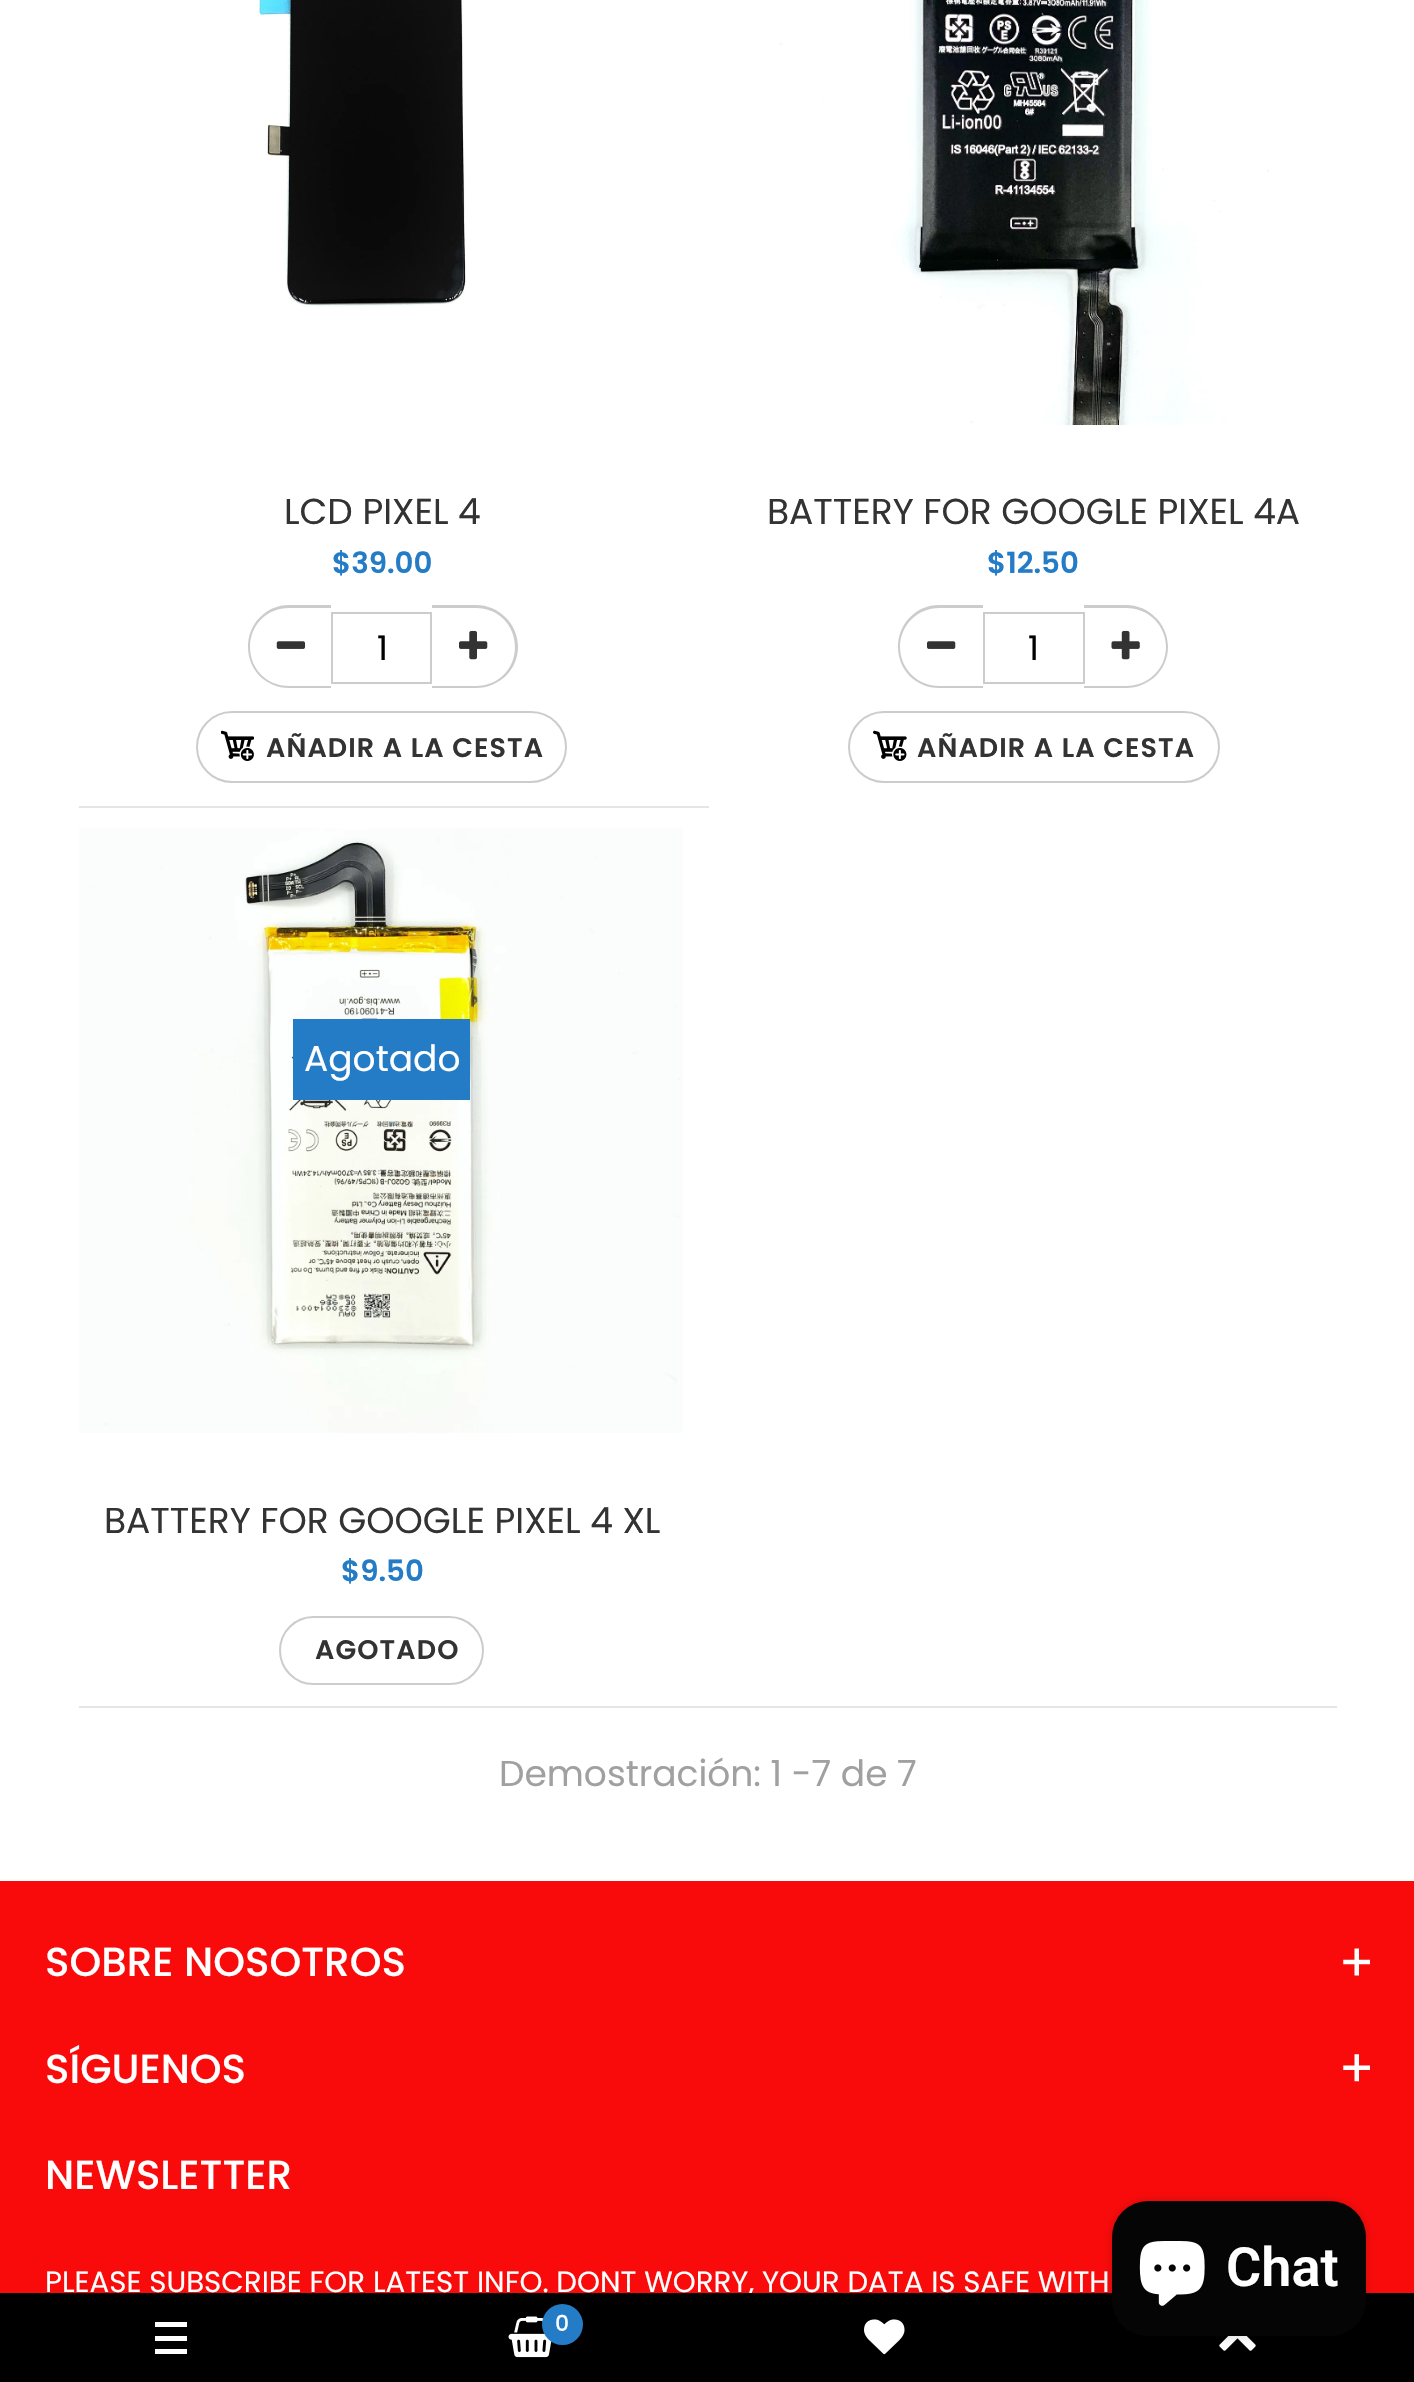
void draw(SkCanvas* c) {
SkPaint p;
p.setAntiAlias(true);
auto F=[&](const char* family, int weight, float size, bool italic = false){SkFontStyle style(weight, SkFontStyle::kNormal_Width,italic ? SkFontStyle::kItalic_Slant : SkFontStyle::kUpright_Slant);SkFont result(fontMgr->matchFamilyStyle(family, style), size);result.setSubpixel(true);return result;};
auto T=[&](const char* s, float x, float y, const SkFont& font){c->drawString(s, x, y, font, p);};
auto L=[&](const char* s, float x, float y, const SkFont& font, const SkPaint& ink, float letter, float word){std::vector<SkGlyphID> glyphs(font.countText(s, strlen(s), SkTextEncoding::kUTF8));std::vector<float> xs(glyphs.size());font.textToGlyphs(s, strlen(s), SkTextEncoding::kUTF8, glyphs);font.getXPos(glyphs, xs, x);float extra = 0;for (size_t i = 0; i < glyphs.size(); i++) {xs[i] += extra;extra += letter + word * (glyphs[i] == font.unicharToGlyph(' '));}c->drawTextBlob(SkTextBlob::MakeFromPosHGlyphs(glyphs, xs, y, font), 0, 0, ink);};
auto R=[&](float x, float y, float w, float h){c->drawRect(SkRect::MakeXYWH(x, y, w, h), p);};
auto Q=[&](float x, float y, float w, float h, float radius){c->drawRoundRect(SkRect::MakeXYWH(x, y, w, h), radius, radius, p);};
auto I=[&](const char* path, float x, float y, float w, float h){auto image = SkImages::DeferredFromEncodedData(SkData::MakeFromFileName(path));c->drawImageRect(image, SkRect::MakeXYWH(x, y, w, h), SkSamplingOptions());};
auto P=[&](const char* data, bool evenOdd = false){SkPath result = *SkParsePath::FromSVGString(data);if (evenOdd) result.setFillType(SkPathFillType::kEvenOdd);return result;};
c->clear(0xffffffff);
I("1.png",259,0,207,307);
auto f1 = F("Poppins",400,36);
p.setColor(0xff333333);
T("LCD PIXEL 4",284,524,f1);
auto f2 = F("Poppins",600,29.25);
p.setColor(0xff247cc6);
T("$39.00",332,573,f2);
p.setColor(0xffcccccc);
c->drawPath(P("M289 605h42v83h-42c-23 0-41-18-41-41c0-23 18-42 41-42zm0 3h42v78h-42c-22 0-39-17-39-39c0-22 17-39 39-39z",true),p);
I("2.png",276,641,30,8);
p.setStroke(true);
p.setStrokeWidth(2);
c->drawRect(SkRect::MakeXYWH(332,613,99,70),p);
auto f3 = F("Poppins",400,34);
p.setStroke(false);
p.setColor(0xff000000);
T("1",377,660,f3);
p.setColor(0xffcccccc);
c->drawPath(P("M432 605h44c23 0 42 19 42 42c0 23-19 41-42 41h-44zm0 3h44c22 0 39 17 39 39c0 22-17 39-39 39h-44z",true),p);
I("3.png",459,630,29,30);
p.setStroke(true);
c->drawRoundRect(SkRect::MakeXYWH(197,712,369,70),35,35,p);
I("4.png",221,730,33,31);
auto f4 = F("Poppins",600,27);
p.setStroke(false);
p.setColor(0xff333333);
L("AÑADIR A LA CESTA",266,757,f4,p,1.1,0);
I("5.png",779,0,490,425);
T("BATTERY FOR GOOGLE PIXEL 4A",767,524,f1);
p.setColor(0xff247cc6);
T("$12.50",987,573,f2);
p.setColor(0xffcccccc);
c->drawPath(P("M939 605h44v83h-44c-23 0-41-18-41-41c0-23 18-42 41-42zm0 3h44v78h-44c-21 0-39-17-39-39c0-22 18-39 39-39z",true),p);
I("6.png",927,641,29,8);
p.setStroke(true);
c->drawRect(SkRect::MakeXYWH(984,613,100,70),p);
p.setStroke(false);
p.setColor(0xff000000);
T("1",1028,660,f3);
p.setColor(0xffcccccc);
c->drawPath(P("M1084 605h42c23 0 42 19 42 42c0 23-19 41-42 41h-42zm0 3h42c22 0 40 17 40 39c0 22-18 39-40 39h-42z",true),p);
I("7.png",1111,630,29,30);
p.setStroke(true);
c->drawRoundRect(SkRect::MakeXYWH(849,712,370,70),35,35,p);
I("8.png",873,730,34,31);
p.setStroke(false);
p.setColor(0xff333333);
L("AÑADIR A LA CESTA",917,757,f4,p,1.1,0);
p.setColor(0xffe5e5e5);
R(79,806,630,2);
I("9.png",79,828,604,605);
p.setColor(0xff247cc6);
R(293,1019,177,81);
p.setColor(0xffffffff);
T("Agotado",304,1071,f1);
p.setColor(0xff333333);
T("BATTERY FOR GOOGLE PIXEL 4 XL",104,1533,f1);
p.setColor(0xff247cc6);
T("$9.50",341,1581,f2);
p.setStroke(true);
p.setColor(0xffcccccc);
c->drawRoundRect(SkRect::MakeXYWH(280,1617,203,67),33.5,33.5,p);
p.setStroke(false);
p.setColor(0xff333333);
L("AGOTADO",315,1659,f4,p,1.1,0);
p.setColor(0xffe5e5e5);
R(79,1706,1258,2);
p.setColor(0xffa0a0a0);
T("Demostración: 1 -7 de 7",499,1786,f1);
p.setColor(0xfffa0b0b);
R(0,1881,1414,412);
auto f5 = F("Poppins",500,40.5);
p.setColor(0xffffffff);
T("SOBRE NOSOTROS",45,1976,f5);
I("10.png",1343,1948,27,28);
T("SÍGUENOS",45,2083,f5);
I("11.png",1343,2054,27,28);
T("NEWSLETTER",45,2189,f5);
auto f6 = F("Poppins",400,29.25);
T("PLEASE SUBSCRIBE FOR LATEST INFO. DONT WORRY, YOUR DATA IS SAFE WITH",45,2292,f6);
p.setColor(0xff000000);
R(0,2293,1062,89);
p.setColor(0xffffffff);
R(155,2336,32,5);
R(155,2322,32,5);
R(155,2349,32,5);
p.setColor(0xff000000);
R(1062,2293,352,89);
I("12.png",1219,2336,37,15);
I("13.png",508,2316,44,42);
p.setColor(0xff247cc6);
c->drawCircle(562.5,2324.5,20.5,p);
auto f7 = F("Poppins",500,22);
p.setColor(0xffffffff);
T("0",555,2331,f7);
I("14.png",864,2319,41,36);
p.setColor(0x26000000);
p.setMaskFilter(SkMaskFilter::MakeBlur(kNormal_SkBlurStyle, 5.5));
c->drawRoundRect(SkRect::MakeXYWH(1112,2201,254,135),36,36,p);
p.setMaskFilter(nullptr);
p.setColor(0xff050505);
Q(1112,2201,254,135,36);
I("15.png",1139,2241,66,65);
auto f8 = F("Roboto",600,54);
p.setColor(0xffffffff);
T("Chat",1226,2286,f8);
}
